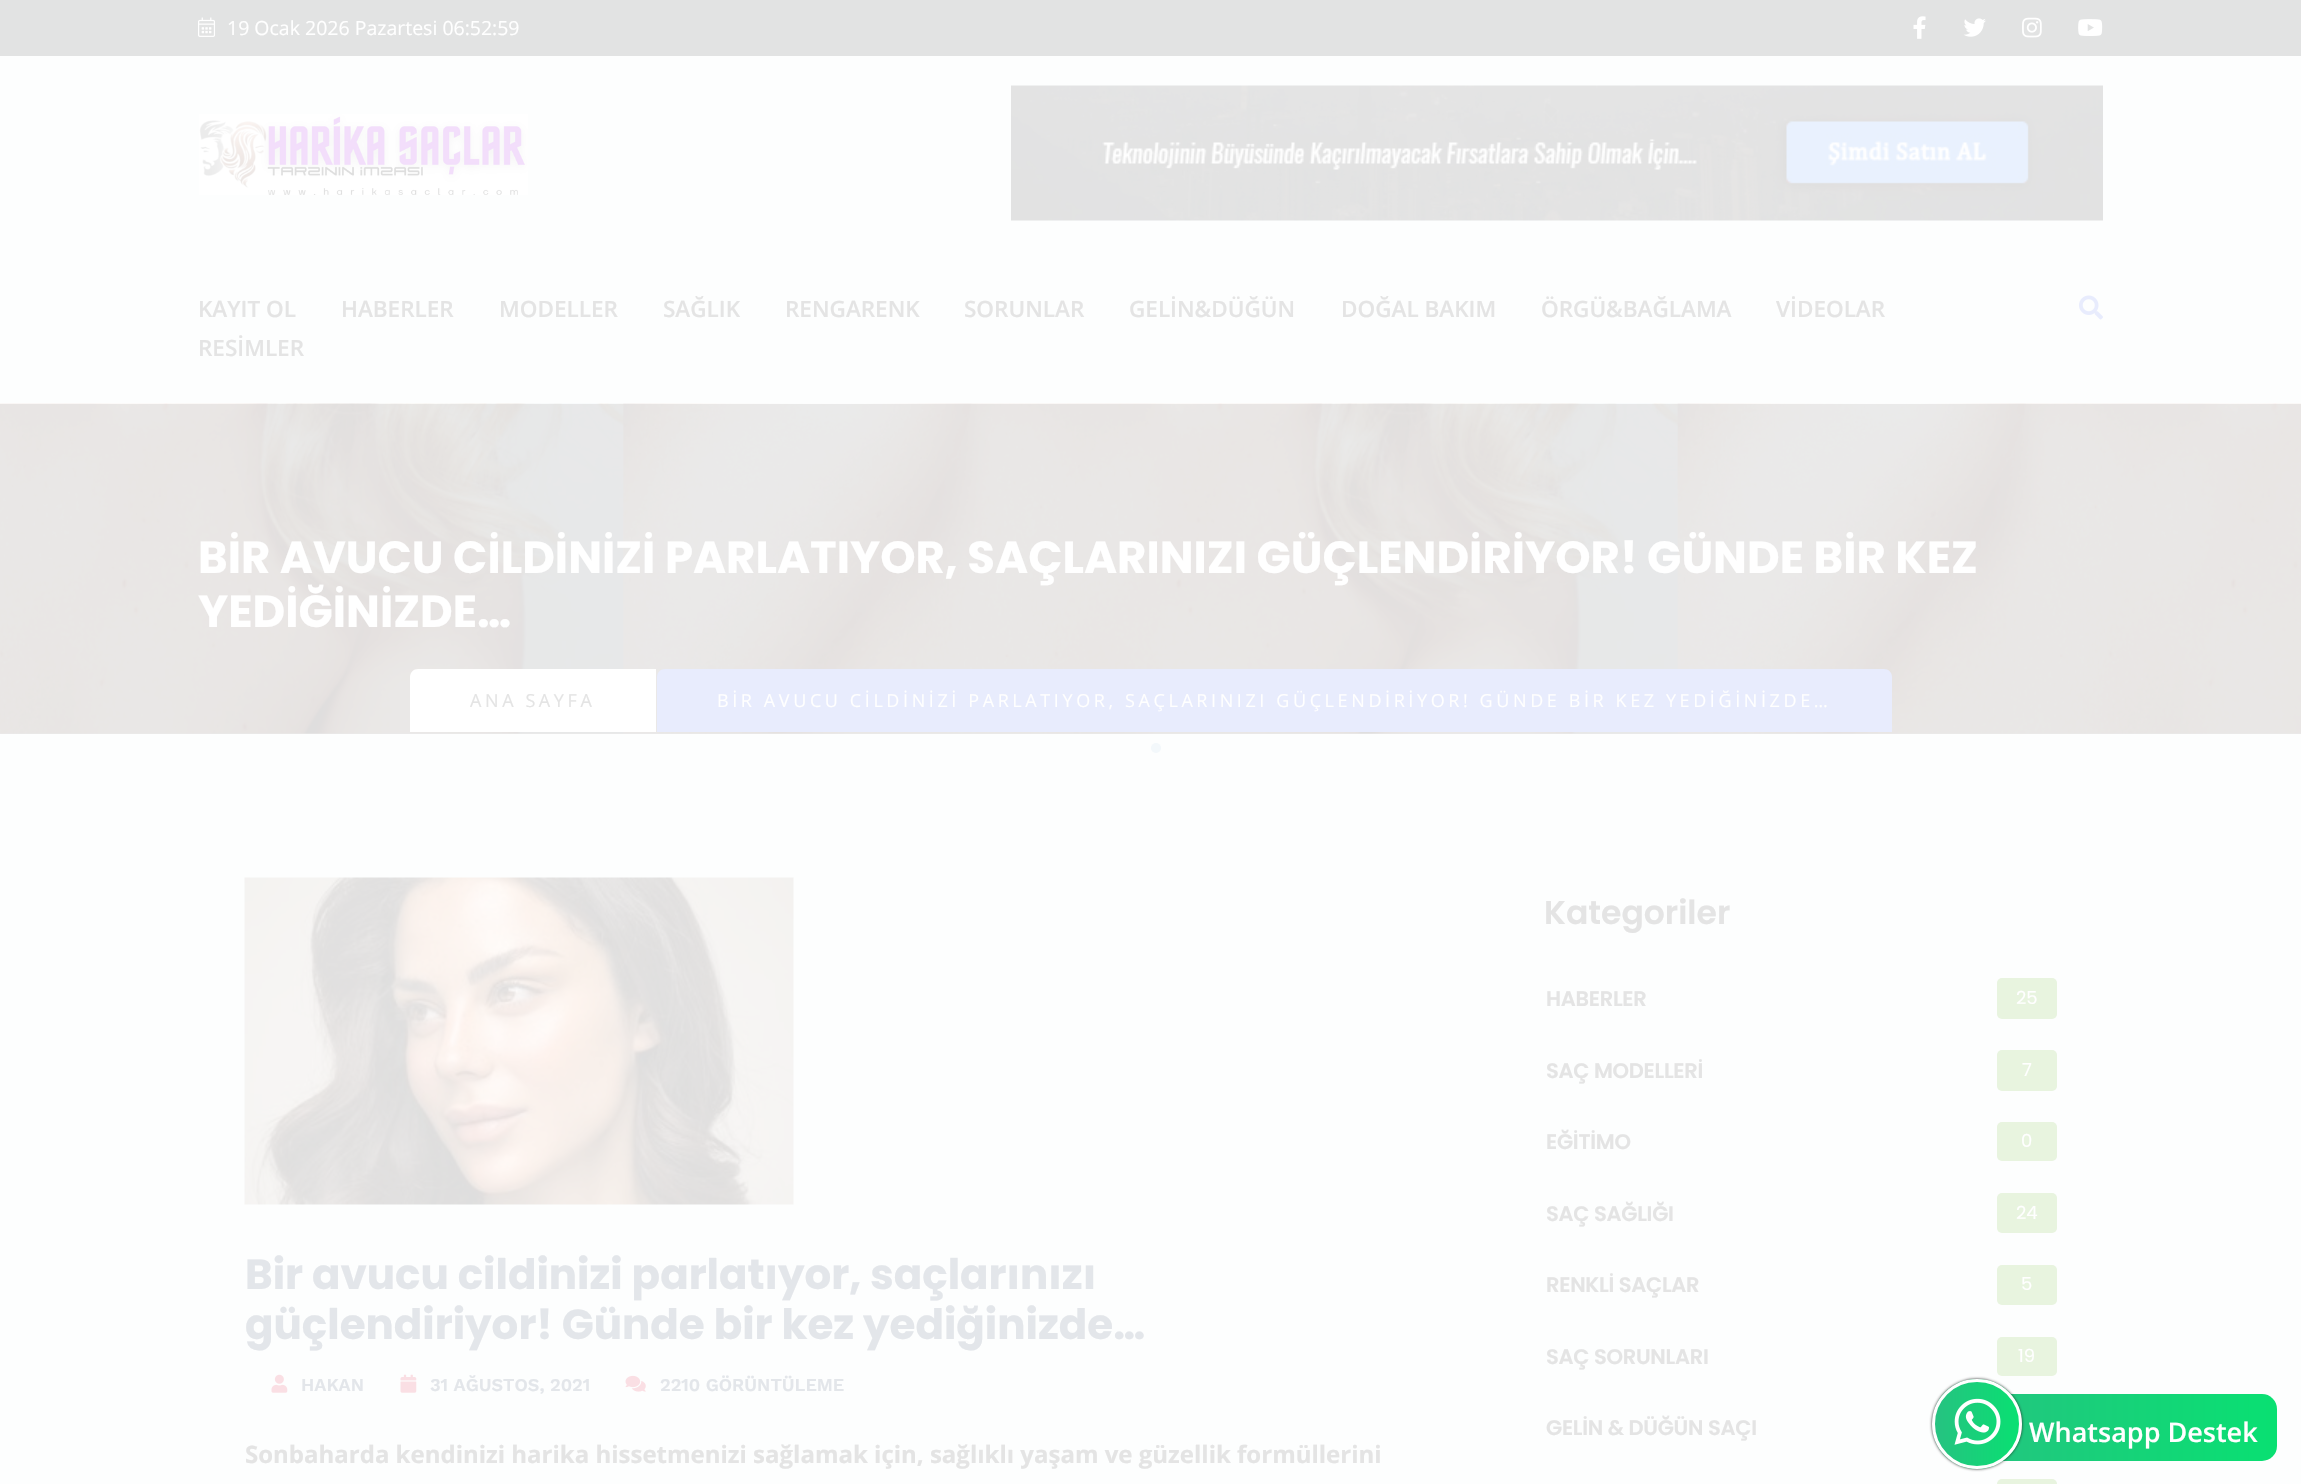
void draw(SkCanvas* c) {
SkPaint p;
p.setAntiAlias(true);
auto F=[&](const char* family, int weight, float size, bool italic = false){SkFontStyle style(weight, SkFontStyle::kNormal_Width,italic ? SkFontStyle::kItalic_Slant : SkFontStyle::kUpright_Slant);SkFont result(fontMgr->matchFamilyStyle(family, style), size);result.setSubpixel(true);return result;};
auto T=[&](const char* s, float x, float y, const SkFont& font){c->drawString(s, x, y, font, p);};
auto L=[&](const char* s, float x, float y, const SkFont& font, const SkPaint& ink, float letter, float word){std::vector<SkGlyphID> glyphs(font.countText(s, strlen(s), SkTextEncoding::kUTF8));std::vector<float> xs(glyphs.size());font.textToGlyphs(s, strlen(s), SkTextEncoding::kUTF8, glyphs);font.getXPos(glyphs, xs, x);float extra = 0;for (size_t i = 0; i < glyphs.size(); i++) {xs[i] += extra;extra += letter + word * (glyphs[i] == font.unicharToGlyph(' '));}c->drawTextBlob(SkTextBlob::MakeFromPosHGlyphs(glyphs, xs, y, font), 0, 0, ink);};
auto R=[&](float x, float y, float w, float h){c->drawRect(SkRect::MakeXYWH(x, y, w, h), p);};
auto Q=[&](float x, float y, float w, float h, float radius){c->drawRoundRect(SkRect::MakeXYWH(x, y, w, h), radius, radius, p);};
auto I=[&](const char* path, float x, float y, float w, float h){auto image = SkImages::DeferredFromEncodedData(SkData::MakeFromFileName(path));c->drawImageRect(image, SkRect::MakeXYWH(x, y, w, h), SkSamplingOptions());};
auto P=[&](const char* data, bool evenOdd = false){SkPath result = *SkParsePath::FromSVGString(data);if (evenOdd) result.setFillType(SkPathFillType::kEvenOdd);return result;};
c->clear(0xfffdfefe);
p.setColor(0xffeaebeb);
R(0,733,2301,1);
p.setColor(0xffe2e3e3);
R(0,0,2301,56);
I("1.png",198,17,18,20);
auto f1 = F("Open Sans",400,19.5);
p.setColor(0xffffffff);
T("19 Ocak 2026 Pazartesi 06:52:59",227,35,f1);
I("2.png",1913,16,13,23);
I("3.png",1963,18,23,19);
I("4.png",2022,17,20,21);
I("5.png",2078,19,25,17);
I("6.png",199,114,329,81);
I("7.png",1011,85,1092,136);
auto f2 = F("Open Sans",600,22.5);
p.setColor(0xffe4e4e4);
T("KAYIT OL",198,317,f2);
T("HABERLER",341,317,f2);
T("MODELLER",499,317,f2);
T("SAĞLIK",663,317,f2);
T("RENGARENK",785,317,f2);
T("SORUNLAR",964,317,f2);
T("GELİN&DÜĞÜN",1129,317,f2);
T("DOĞAL BAKIM",1341,317,f2);
T("ÖRGÜ&BAĞLAMA",1541,317,f2);
T("VİDEOLAR",1776,317,f2);
T("RESİMLER",198,356,f2);
I("8.png",2079,295,24,25);
I("9.png",0,403,2301,331);
auto f3 = F("Poppins",700,45);
p.setColor(0xffffffff);
T("BİR AVUCU CİLDİNİZİ PARLATIYOR, SAÇLARINIZI GÜÇLENDİRİYOR! GÜNDE BİR KEZ",198,573,f3);
T("YEDİĞİNİZDE…",198,627,f3);
c->drawPath(P("M418 669h238v63h-246v-55c0-4.5 3.5-8 8-8z"),p);
auto f4 = F("Open Sans",400,18);
p.setColor(0xffe4e4e4);
L("ANA SAYFA",470,707,f4,p,3.6,0);
p.setColor(0xffe8ecfd);
c->drawPath(P("M665 669h1219c4.5 0 8 3.5 8 8v55h-1235v-55c0-4.5 3.5-8 8-8z"),p);
p.setColor(0xffffffff);
L("BİR AVUCU CİLDİNİZİ PARLATIYOR, SAÇLARINIZI GÜÇLENDİRİYOR! GÜNDE BİR KEZ YEDİĞİNİZDE…",717,707,f4,p,3.6,0);
p.setColor(0xfff3f8fb);
c->drawCircle(1156,748,5,p);
I("10.png",244,877,550,328);
auto f5 = F("Poppins",700,42);
p.setColor(0xffe3e6ea);
T("Bir avucu cildinizi parlatıyor, saçlarınızı",245,1289,f5);
T("güçlendiriyor! Günde bir kez yediğinizde…",245,1339,f5);
I("11.png",271,1374,17,19);
auto f6 = F("Work Sans",600,18);
T("HAKAN",301,1391,f6);
I("12.png",400,1374,17,19);
T("31 AĞUSTOS, 2021",430,1391,f6);
I("13.png",625,1375,21,17);
T("2210 GÖRÜNTÜLEME",660,1391,f6);
auto f7 = F("Open Sans",700,24);
p.setColor(0xffe4e4e4);
T("Sonbaharda kendinizi harika hissetmenizi sağlamak için, sağlıklı yaşam ve güzellik formüllerini",245,1463,f7);
auto f8 = F("Poppins",600,33);
T("Kategoriler",1544,924,f8);
auto f9 = F("Poppins",600,21);
L("HABERLER",1546,1006,f9,p,-.25,0);
p.setColor(0xffe8f4df);
Q(1997,978,60,41,5);
auto f10 = F("Poppins",400,18);
p.setColor(0xffffffff);
T("25",2016,1004,f10);
p.setColor(0xffe4e4e4);
L("SAÇ MODELLERİ",1546,1078,f9,p,-.25,0);
p.setColor(0xffe8f4df);
Q(1997,1050,60,41,5);
p.setColor(0xffffffff);
T("7",2022,1076,f10);
p.setColor(0xffe4e4e4);
L("EĞİTİMO",1546,1149,f9,p,-.25,0);
p.setColor(0xffe8f4df);
Q(1997,1122,60,39,5);
p.setColor(0xffffffff);
T("0",2021,1147,f10);
p.setColor(0xffe4e4e4);
L("SAÇ SAĞLIĞI",1546,1221,f9,p,-.25,0);
p.setColor(0xffe8f4df);
Q(1997,1193,60,40,5);
p.setColor(0xffffffff);
T("24",2016,1219,f10);
p.setColor(0xffe4e4e4);
L("RENKLİ SAÇLAR",1546,1292,f9,p,-.25,0);
p.setColor(0xffe8f4df);
Q(1997,1265,60,40,5);
p.setColor(0xffffffff);
T("5",2021,1290,f10);
p.setColor(0xffe4e4e4);
L("SAÇ SORUNLARI",1546,1364,f9,p,-.25,0);
p.setColor(0xffe8f4df);
Q(1997,1337,60,39,5);
p.setColor(0xffffffff);
T("19",2018,1362,f10);
p.setColor(0xffe4e4e4);
L("GELİN & DÜĞÜN SAÇI",1546,1435,f9,p,-.25,0);
p.setColor(0xffe8f4df);
Q(1997,1479,60,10,5);
{
const SkColor colors[] = {0xff26c281,0xff09e072};
const float stops[] = {0,1};
const SkPoint ends[] = {{1946,1427}, {2277,1427}};
p.setShader(SkGradientShader::MakeLinear(ends, colors, stops, 2, SkTileMode::kClamp));
p.setAlpha(255);
}
Q(1946,1394,331,67,15);
p.setShader(nullptr);
p.setColor(0xff222222);
p.setMaskFilter(SkMaskFilter::MakeBlur(kNormal_SkBlurStyle, 1.5));
c->drawRoundRect(SkRect::MakeXYWH(1932,1379,90,90),45,45,p);
p.setMaskFilter(nullptr);
c->save();
c->clipPath(P("M1977 1379c25 0 45 20 45 45c0 25-20 45-45 45c-25 0-45-20-45-45c0-25 20-45 45-45z"),true);
{
const SkColor colors[] = {0xff26c281,0xff09e072};
const float stops[] = {0,1};
const SkPoint ends[] = {{1935,1424}, {2019,1424}};
p.setShader(SkGradientShader::MakeLinear(ends, colors, stops, 2, SkTileMode::kClamp));
p.setAlpha(255);
}
R(1935,1379,84,90);
c->restore();
p.setStroke(true);
p.setStrokeWidth(3);
p.setShader(nullptr);
p.setColor(0xffffffff);
c->drawCircle(1977,1424,43.5,p);
I("14.png",1954,1398,47,47);
auto f11 = F("Open Sans",600,27);
p.setStroke(false);
T("Whatsapp Destek",2029,1442,f11);
}
